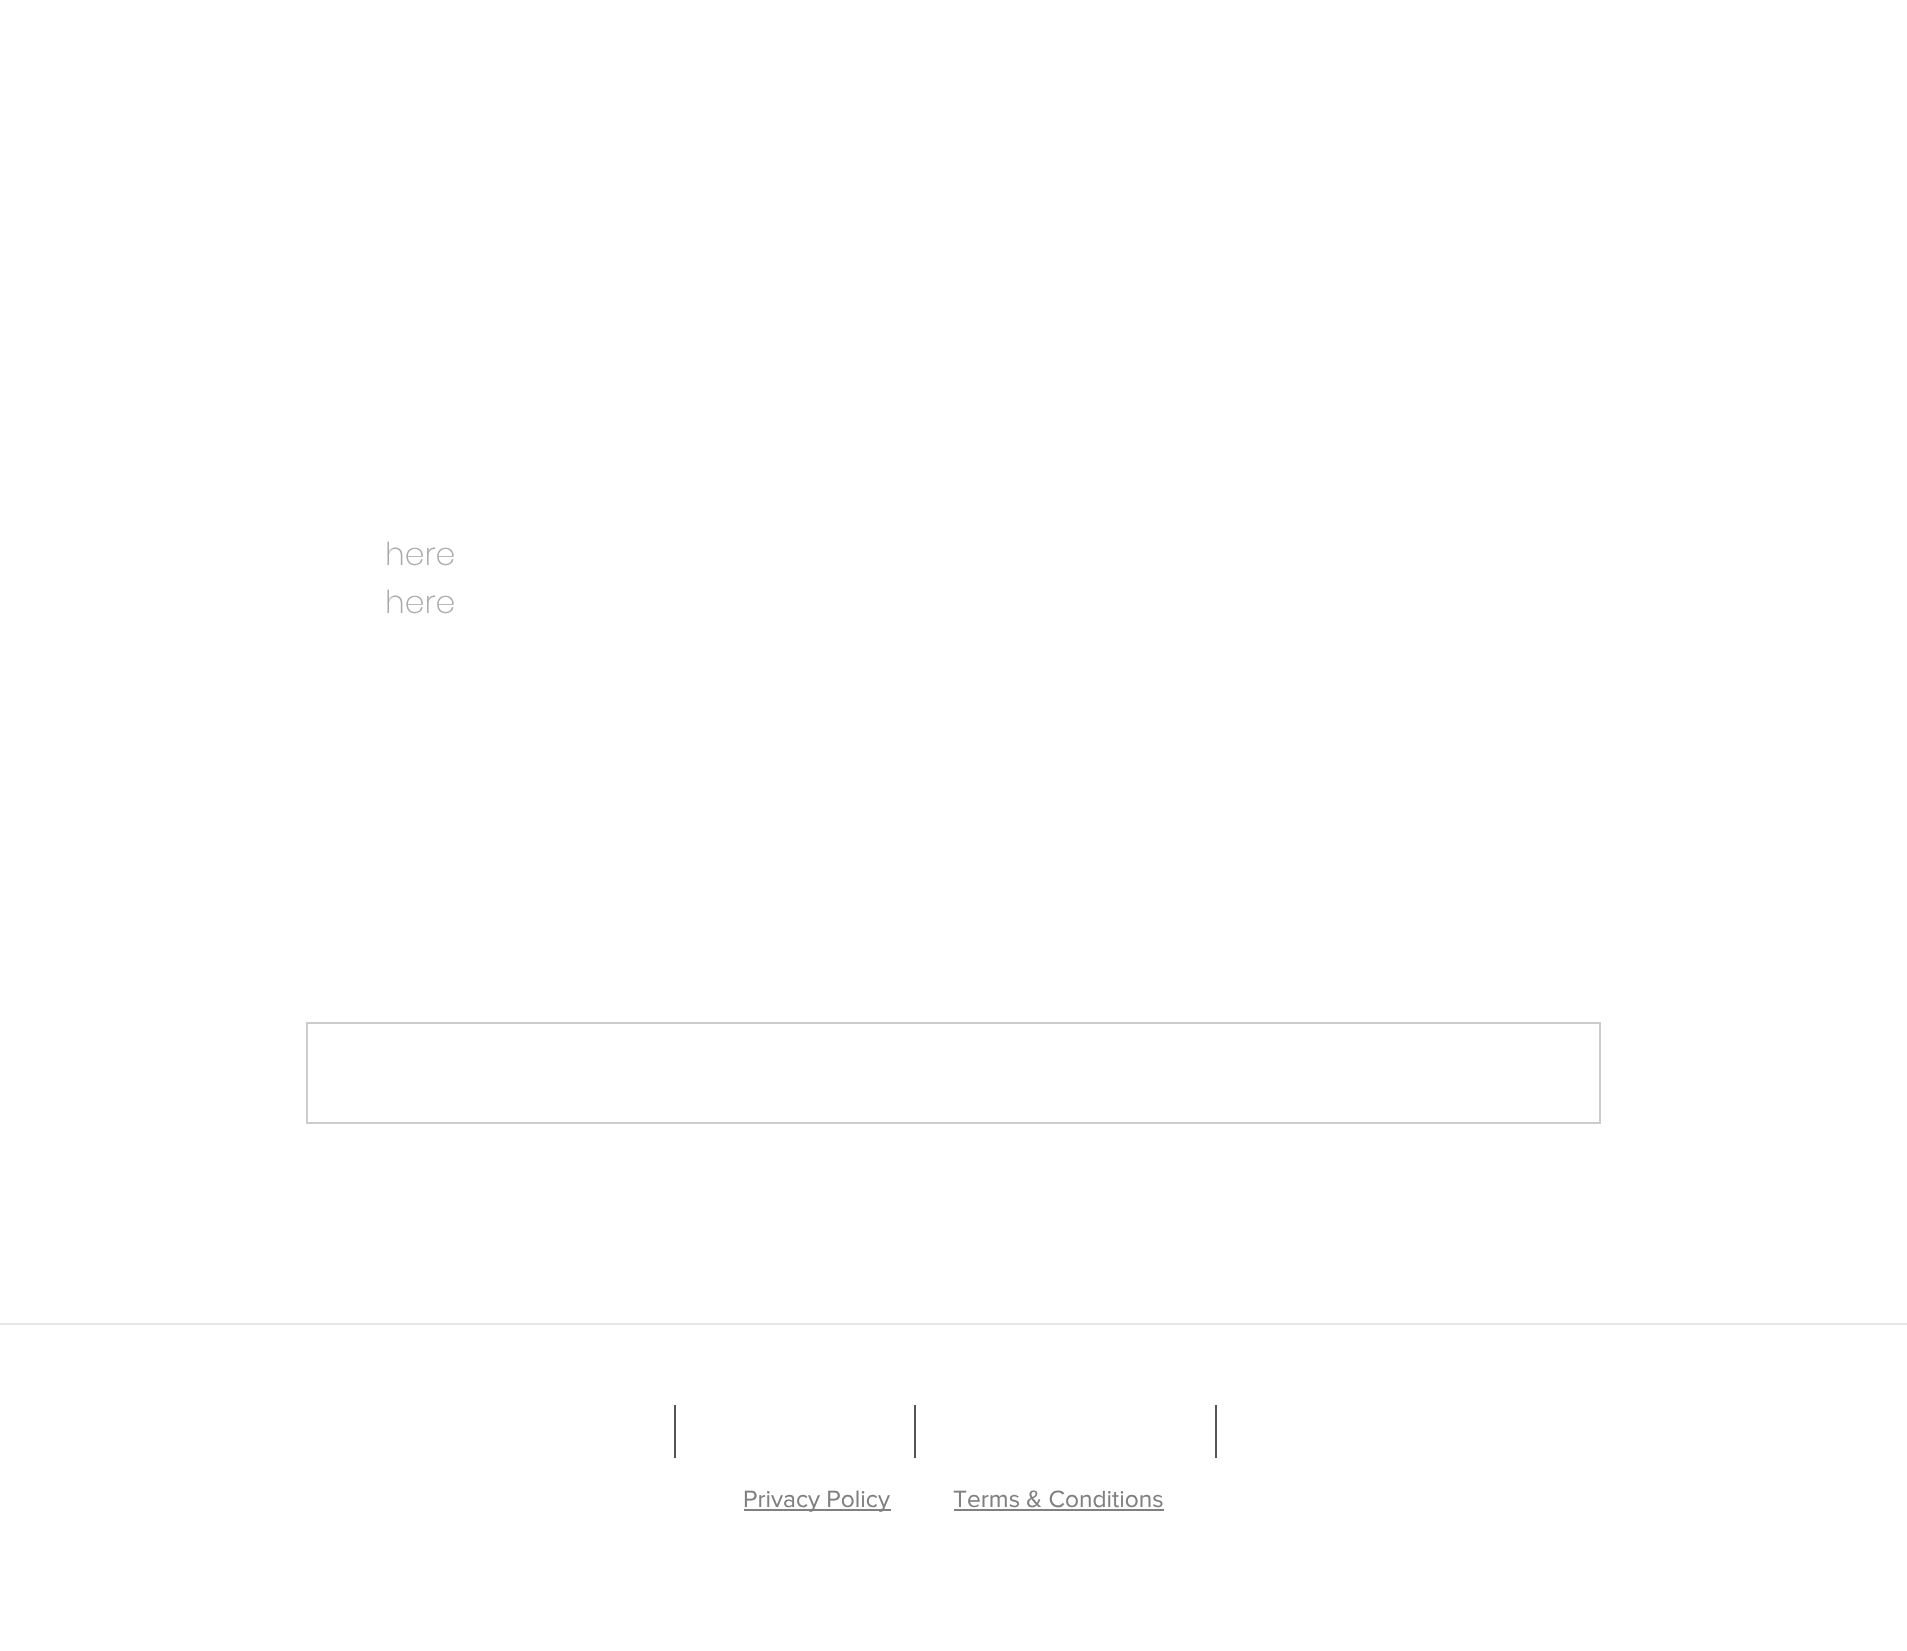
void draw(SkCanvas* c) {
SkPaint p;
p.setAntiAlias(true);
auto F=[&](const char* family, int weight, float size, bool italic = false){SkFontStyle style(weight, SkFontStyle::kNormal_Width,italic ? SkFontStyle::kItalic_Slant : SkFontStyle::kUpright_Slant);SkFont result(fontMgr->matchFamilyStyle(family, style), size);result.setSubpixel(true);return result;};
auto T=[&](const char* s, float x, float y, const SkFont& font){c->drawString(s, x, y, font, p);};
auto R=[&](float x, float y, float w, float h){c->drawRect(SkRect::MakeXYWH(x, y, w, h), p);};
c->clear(0xffffffff);
auto f1 = F("Poppins",200,31.5);
p.setColor(0xffaaaaaa);
T("here",385,565,f1);
T("here",385,613,f1);
p.setStroke(true);
p.setStrokeWidth(2);
p.setColor(0xffcccccc);
c->drawRect(SkRect::MakeXYWH(307,1023,1293,100),p);
p.setStroke(false);
p.setColor(0xffe6e6e6);
R(0,1323,1907,2);
p.setColor(0xff555555);
R(674,1405,2,53);
R(914,1405,2,53);
R(1215,1405,2,53);
p.setColor(0xff808080);
R(744,1509,147,2);
auto f2 = F("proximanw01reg",400,24.5);
T("Privacy Policy",743,1507,f2);
T("Terms & Conditions",953,1507,f2);
R(954,1509,210,2);
}
